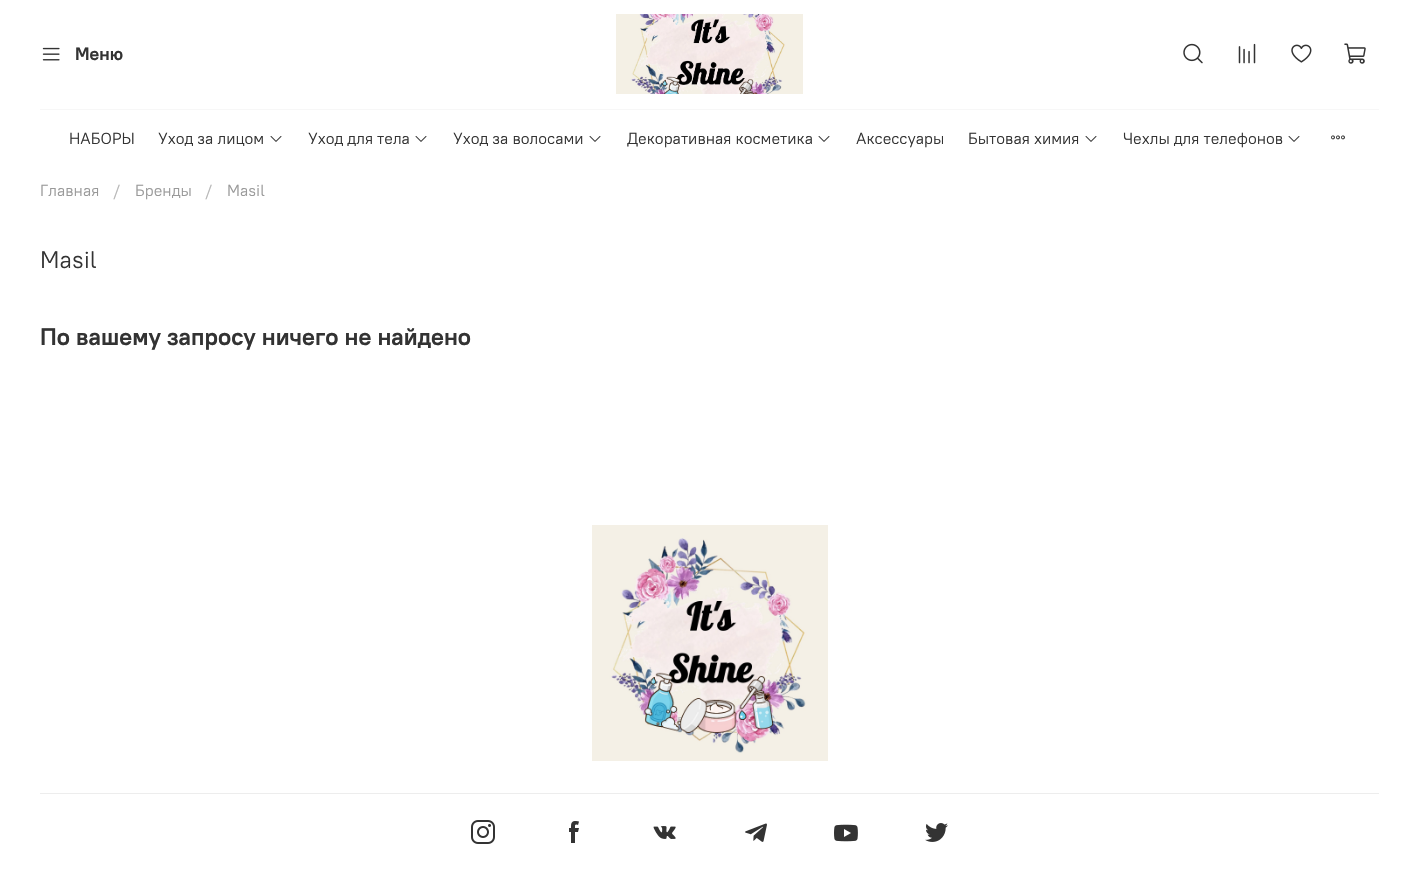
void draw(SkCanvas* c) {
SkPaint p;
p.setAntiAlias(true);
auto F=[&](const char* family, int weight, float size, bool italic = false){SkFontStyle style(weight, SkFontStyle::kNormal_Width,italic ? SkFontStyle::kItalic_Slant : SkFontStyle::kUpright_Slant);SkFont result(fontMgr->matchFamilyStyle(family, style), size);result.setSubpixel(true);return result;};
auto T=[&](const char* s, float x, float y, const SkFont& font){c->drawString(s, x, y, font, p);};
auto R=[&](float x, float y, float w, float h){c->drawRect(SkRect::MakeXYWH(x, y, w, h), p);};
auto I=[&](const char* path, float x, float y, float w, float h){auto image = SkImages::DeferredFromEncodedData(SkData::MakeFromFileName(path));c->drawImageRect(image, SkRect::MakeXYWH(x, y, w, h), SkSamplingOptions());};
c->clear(0xffffffff);
I("1.png",42,47,18,14);
auto f1 = F("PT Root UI",700,18);
p.setColor(0xff333333);
T("Меню",75,60,f1);
I("2.png",616,14,187,80);
I("3.png",1183,43,20,21);
I("4.png",1238,43,18,21);
I("5.png",1291,44,21,19);
I("6.png",1344,43,22,21);
p.setColor(0xfff7f7f7);
R(40,109,1339,1);
auto f2 = F("PT Root UI",400,16);
p.setColor(0xff333333);
T("НАБОРЫ",69,144,f2);
T("Уход за лицом",158,144,f2);
I("7.png",270,136,12,6);
T("Уход для тела",308,144,f2);
I("7.png",415,136,12,6);
T("Уход за волосами",453,144,f2);
I("7.png",589,136,12,6);
T("Декоративная косметика",627,144,f2);
I("7.png",818,136,12,6);
T("Аксессуары",856,144,f2);
T("Бытовая химия",968,144,f2);
I("7.png",1085,136,12,6);
T("Чехлы для телефонов",1123,144,f2);
I("7.png",1288,136,12,6);
I("8.png",1331,135,14,5);
p.setColor(0xff999999);
T("Главная",40,196,f2);
p.setColor(0xffb8b8b8);
T("/",113,196,f2);
p.setColor(0xff999999);
T("Бренды",135,196,f2);
p.setColor(0xffb8b8b8);
T("/",205,196,f2);
p.setColor(0xff999999);
T("Masil",227,196,f2);
auto f3 = F("PT Root UI",400,24);
p.setColor(0xff333333);
T("Masil",40,268,f3);
auto f4 = F("PT Root UI",700,24);
T("По вашему запросу ничего не найдено",40,345,f4);
I("9.png",592,525,236,236);
p.setColor(0xffededed);
R(40,793,1339,1);
I("10.png",471,820,24,24);
I("11.png",569,821,10,22);
I("12.png",653,826,23,13);
I("13.png",745,823,22,19);
I("14.png",834,824,24,18);
I("15.png",925,823,23,19);
}
